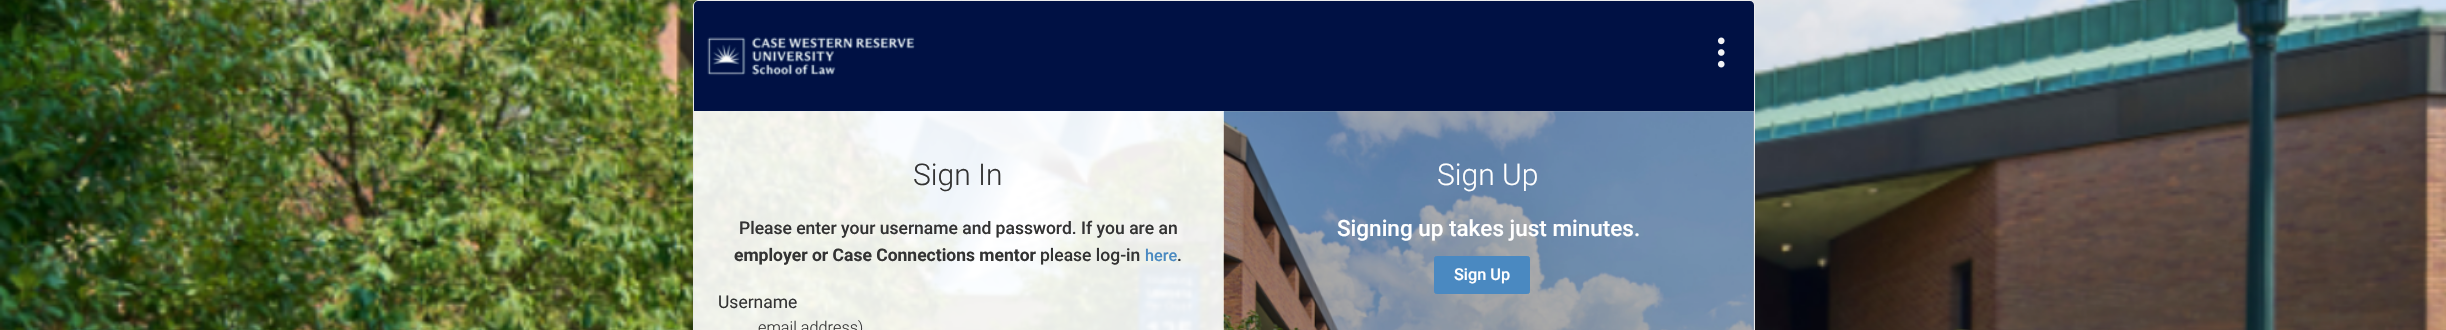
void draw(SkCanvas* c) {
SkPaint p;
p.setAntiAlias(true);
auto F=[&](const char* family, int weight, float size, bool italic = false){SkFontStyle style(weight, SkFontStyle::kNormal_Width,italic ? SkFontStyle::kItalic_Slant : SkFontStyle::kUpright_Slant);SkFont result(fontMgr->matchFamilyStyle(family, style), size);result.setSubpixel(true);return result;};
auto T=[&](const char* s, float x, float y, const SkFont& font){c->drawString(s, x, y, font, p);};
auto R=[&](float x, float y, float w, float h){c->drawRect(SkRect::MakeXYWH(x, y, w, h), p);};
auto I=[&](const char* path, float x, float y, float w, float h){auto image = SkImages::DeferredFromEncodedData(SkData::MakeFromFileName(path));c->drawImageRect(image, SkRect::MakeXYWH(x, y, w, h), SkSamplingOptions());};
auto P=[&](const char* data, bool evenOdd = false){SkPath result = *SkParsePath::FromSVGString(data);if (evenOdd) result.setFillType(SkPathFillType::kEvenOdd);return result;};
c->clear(0xffffffff);
I("1.png",0,0,2446,330);
p.setColor(0xe6ffffff);
c->drawRoundRect(SkRect::MakeXYWH(693.5,.5,1061,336),5.5,5.5,p);
p.setStroke(true);
p.setStrokeWidth(1);
p.setColor(0xffececec);
c->drawRoundRect(SkRect::MakeXYWH(693.5,.5,1061,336),5.5,5.5,p);
p.setStroke(false);
p.setColor(0xff001144);
c->drawPath(P("M698 1h1052c2 0 4 2 4 4v106h-1060v-106c0-2 2-4 4-4z"),p);
I("2.png",707,37,208,39);
I("3.png",1717,37,8,31);
auto f1 = F("Roboto",300,30);
p.setColor(0xff333333);
T("Sign In",913,185,f1);
auto f2 = F("Roboto",500,17.5);
T("Please enter your username and password. If you are an",739,234,f2);
auto f3 = F("Roboto",700,17.5);
T("employer or Case Connections mentor",734,261,f3);
T("please log-in",1040,261,f2);
auto f4 = F("Roboto",500,16.25);
p.setColor(0xff4a89c1);
T("here",1145,261,f4);
p.setColor(0xff333333);
T(".",1177,261,f2);
auto f5 = F("Roboto",400,17.5);
T("Username",718,308,f5);
auto f6 = F("Roboto",300,16.25);
T("email address)",758,333,f6);
I("4.png",1223,111,531,219);
p.setColor(0x4d000000);
R(1224,111,530,219);
p.setColor(0xffffffff);
T("Sign Up",1437,185,f1);
auto f7 = F("Roboto",500,22.5);
T("Signing up takes just minutes.",1337,236,f7);
p.setColor(0xff4a89c1);
c->drawRoundRect(SkRect::MakeXYWH(1434.5,256.5,95,37),2,2,p);
p.setStroke(true);
c->drawRoundRect(SkRect::MakeXYWH(1434.5,256.5,95,37),2,2,p);
p.setStroke(false);
p.setColor(0xffffffff);
T("Sign Up",1454,280,f4);
}
